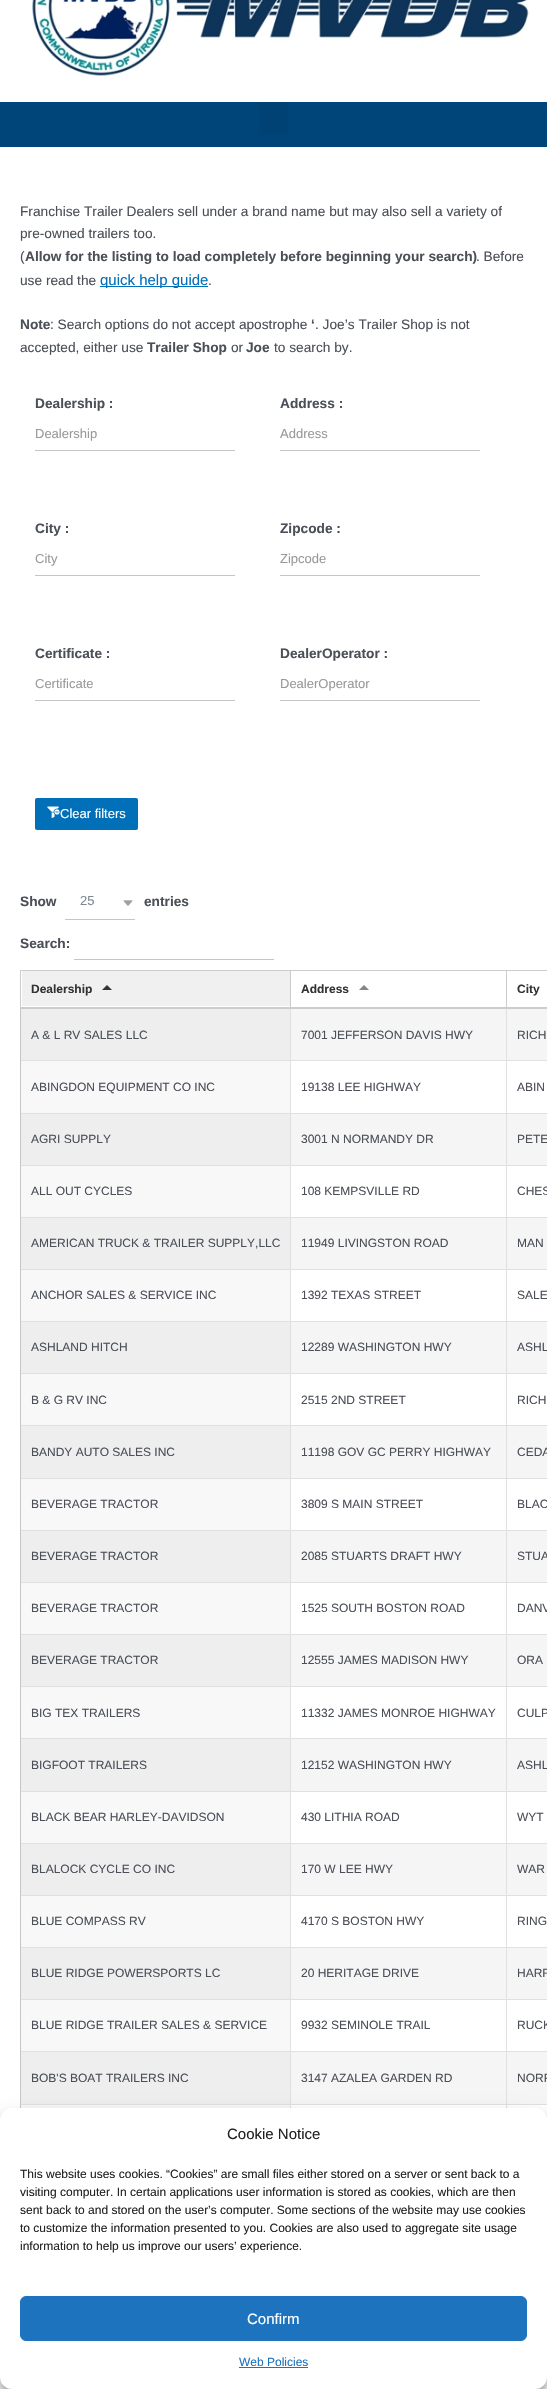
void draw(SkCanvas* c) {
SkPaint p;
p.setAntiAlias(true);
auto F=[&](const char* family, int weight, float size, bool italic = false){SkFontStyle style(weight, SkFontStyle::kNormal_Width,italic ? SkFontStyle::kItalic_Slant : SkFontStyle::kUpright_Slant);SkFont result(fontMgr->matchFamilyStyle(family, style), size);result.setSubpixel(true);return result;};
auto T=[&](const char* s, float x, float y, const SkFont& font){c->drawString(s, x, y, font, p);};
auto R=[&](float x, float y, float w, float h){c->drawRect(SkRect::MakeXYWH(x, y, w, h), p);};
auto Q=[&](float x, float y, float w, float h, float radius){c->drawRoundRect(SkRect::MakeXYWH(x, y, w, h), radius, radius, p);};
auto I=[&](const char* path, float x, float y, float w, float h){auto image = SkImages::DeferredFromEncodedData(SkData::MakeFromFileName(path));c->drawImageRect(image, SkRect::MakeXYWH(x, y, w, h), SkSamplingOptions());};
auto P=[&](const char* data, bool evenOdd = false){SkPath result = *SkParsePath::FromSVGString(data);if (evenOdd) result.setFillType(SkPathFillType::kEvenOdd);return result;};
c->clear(0xffffffff);
I("1.png",32,0,497,76);
p.setColor(0xff004579);
R(0,102,547,45);
p.setColor(0xff004273);
Q(259,102,29,33,3);
auto f1 = F("Liberation Sans",400,13.7);
p.setColor(0xff4b4f58);
T("Franchise Trailer Dealers sell under a brand name but may also sell a variety of",20,216,f1);
T("pre-owned trailers too.",20,238,f1);
T("(",20,261,f1);
auto f2 = F("Liberation Sans",700,13.7);
T("Allow for the listing to load completely before beginning your search)",25,261,f2);
T(". Before",476,261,f1);
T("use read the",20,285,f1);
p.setColor(0xff0170b9);
R(100,286,108,1);
auto f3 = F("Liberation Sans",400,15);
T("quick help guide",100,285,f3);
p.setColor(0xff4b4f58);
T(".",208,285,f1);
T("Note",20,329,f2);
T(": Search options do not accept apostrophe",50,329,f1);
T("‘",311,329,f2);
T(". Joe’s Trailer Shop is not",315,329,f1);
T("accepted, either use",20,352,f1);
T("Trailer Shop",147,352,f2);
T("or",231,352,f1);
T("Joe",246,352,f2);
T("to search by.",274,352,f1);
T("Dealership :",35,408,f2);
p.setColor(0xffc4c5c6);
R(35,450,200,1);
auto f4 = F("Liberation Sans",400,13);
p.setColor(0xff999999);
T("Dealership",35,438,f4);
p.setColor(0xff4b4f58);
T("Address :",280,408,f2);
p.setColor(0xffc4c5c6);
R(280,450,200,1);
p.setColor(0xff999999);
T("Address",280,438,f4);
p.setColor(0xff4b4f58);
T("City :",35,533,f2);
p.setColor(0xffc4c5c6);
R(35,575,200,1);
p.setColor(0xff999999);
T("City",35,563,f4);
p.setColor(0xff4b4f58);
T("Zipcode :",280,533,f2);
p.setColor(0xffc4c5c6);
R(280,575,200,1);
p.setColor(0xff999999);
T("Zipcode",280,563,f4);
p.setColor(0xff4b4f58);
T("Certificate :",35,658,f2);
p.setColor(0xffc4c5c6);
R(35,700,200,1);
p.setColor(0xff999999);
T("Certificate",35,688,f4);
p.setColor(0xff4b4f58);
T("DealerOperator :",280,658,f2);
p.setColor(0xffc4c5c6);
R(280,700,200,1);
p.setColor(0xff999999);
T("DealerOperator",280,688,f4);
p.setColor(0xff0170b9);
Q(35,798,103,32,2);
I("2.png",47,806,13,12);
p.setColor(0xffffffff);
T("Clear filters",60,818,f4);
p.setColor(0xff4b4f58);
T("Show",20,906,f2);
p.setColor(0xffc4c5c6);
R(65,919,70,1);
p.setColor(0xff7b8792);
T("25",80,905,f4);
I("3.png",123,900,10,6);
p.setColor(0xff4b4f58);
T("entries",144,906,f2);
T("Search:",20,948,f2);
p.setColor(0xffc4c5c6);
R(74,959,200,1);
p.setColor(0xffcccccc);
R(506,970,41,1);
p.setColor(0xffe0e0e0);
R(506,1060,41,1);
R(506,1113,41,1);
R(506,1165,41,1);
R(506,1217,41,1);
R(506,1269,41,1);
R(506,1321,41,1);
R(506,1373,41,1);
R(506,1425,41,1);
R(506,1478,41,1);
R(506,1530,41,1);
R(506,1582,41,1);
R(506,1634,41,1);
R(506,1686,41,1);
R(506,1738,41,1);
R(506,1791,41,1);
R(506,1843,41,1);
R(506,1895,41,1);
R(506,1947,41,1);
R(506,1999,41,1);
R(506,2051,41,1);
R(506,2104,41,1);
R(506,2104,1,4);
R(290,2104,217,1);
R(506,2051,1,54);
R(290,2051,217,1);
R(506,1999,1,53);
R(290,1999,217,1);
R(506,1947,1,53);
R(290,1947,217,1);
R(506,1895,1,53);
R(290,1895,217,1);
R(506,1843,1,53);
R(290,1843,217,1);
R(506,1791,1,53);
R(290,1791,217,1);
R(506,1738,1,54);
R(290,1738,217,1);
R(506,1686,1,53);
R(290,1686,217,1);
R(506,1634,1,53);
R(290,1634,217,1);
R(506,1582,1,53);
R(290,1582,217,1);
R(506,1530,1,53);
R(290,1530,217,1);
R(506,1478,1,53);
R(290,1478,217,1);
R(506,1425,1,54);
R(290,1425,217,1);
R(506,1373,1,53);
R(290,1373,217,1);
R(506,1321,1,53);
R(290,1321,217,1);
R(506,1269,1,53);
R(290,1269,217,1);
R(506,1217,1,53);
R(290,1217,217,1);
R(506,1165,1,53);
R(290,1165,217,1);
R(506,1113,1,53);
R(290,1113,217,1);
R(506,1060,1,54);
R(290,1060,217,1);
R(506,1008,1,53);
p.setColor(0xffcccccc);
R(506,970,1,39);
R(290,970,217,1);
p.setColor(0xffe0e0e0);
R(290,2104,1,4);
R(290,2051,1,54);
R(290,1999,1,53);
R(290,1947,1,53);
R(290,1895,1,53);
R(290,1843,1,53);
R(290,1791,1,53);
R(290,1738,1,54);
R(290,1686,1,53);
R(290,1634,1,53);
R(290,1582,1,53);
R(290,1530,1,53);
R(290,1478,1,53);
R(290,1425,1,54);
R(290,1373,1,53);
R(290,1321,1,53);
R(290,1269,1,53);
R(290,1217,1,53);
R(290,1165,1,53);
R(290,1113,1,53);
R(290,1008,1,106);
p.setColor(0xffcccccc);
R(290,970,1,39);
R(20,970,271,1);
p.setColor(0xffc6c6c6);
R(20,2104,1,4);
p.setColor(0xffe0e0e0);
R(20,2104,271,1);
p.setColor(0xffc6c6c6);
R(20,2051,1,54);
p.setColor(0xffe0e0e0);
R(20,2051,271,1);
p.setColor(0xffc6c6c6);
R(20,1999,1,53);
p.setColor(0xffe0e0e0);
R(20,1999,271,1);
p.setColor(0xffc6c6c6);
R(20,1947,1,53);
p.setColor(0xffe0e0e0);
R(20,1947,271,1);
p.setColor(0xffc6c6c6);
R(20,1895,1,53);
p.setColor(0xffe0e0e0);
R(20,1895,271,1);
p.setColor(0xffc6c6c6);
R(20,1843,1,53);
p.setColor(0xffe0e0e0);
R(20,1843,271,1);
p.setColor(0xffc6c6c6);
R(20,1791,1,53);
p.setColor(0xffe0e0e0);
R(20,1791,271,1);
p.setColor(0xffc6c6c6);
R(20,1738,1,54);
p.setColor(0xffe0e0e0);
R(20,1738,271,1);
p.setColor(0xffc6c6c6);
R(20,1686,1,53);
p.setColor(0xffe0e0e0);
R(20,1686,271,1);
p.setColor(0xffc6c6c6);
R(20,1634,1,53);
p.setColor(0xffe0e0e0);
R(20,1634,271,1);
p.setColor(0xffc6c6c6);
R(20,1582,1,53);
p.setColor(0xffe0e0e0);
R(20,1582,271,1);
p.setColor(0xffc6c6c6);
R(20,1530,1,53);
p.setColor(0xffe0e0e0);
R(20,1530,271,1);
p.setColor(0xffc6c6c6);
R(20,1478,1,53);
p.setColor(0xffe0e0e0);
R(20,1478,271,1);
p.setColor(0xffc6c6c6);
R(20,1425,1,54);
p.setColor(0xffe0e0e0);
R(20,1425,271,1);
p.setColor(0xffc6c6c6);
R(20,1373,1,53);
p.setColor(0xffe0e0e0);
R(20,1373,271,1);
p.setColor(0xffc6c6c6);
R(20,1321,1,53);
p.setColor(0xffe0e0e0);
R(20,1321,271,1);
p.setColor(0xffc6c6c6);
R(20,1269,1,53);
p.setColor(0xffe0e0e0);
R(20,1269,271,1);
p.setColor(0xffc6c6c6);
R(20,1217,1,53);
p.setColor(0xffe0e0e0);
R(20,1217,271,1);
p.setColor(0xffc6c6c6);
R(20,1165,1,53);
p.setColor(0xffe0e0e0);
R(20,1165,271,1);
p.setColor(0xffc6c6c6);
R(20,1113,1,53);
p.setColor(0xffe0e0e0);
R(20,1113,271,1);
p.setColor(0xffc6c6c6);
R(20,1060,1,54);
p.setColor(0xffe0e0e0);
R(20,1060,271,1);
p.setColor(0xffc6c6c6);
R(20,1008,1,53);
p.setColor(0xffcccccc);
R(20,970,1,39);
p.setColor(0xfff0f0f0);
R(22,971,268,35);
auto f5 = F("Liberation Sans",700,12);
p.setColor(0xff333333);
T("Dealership",31,993,f5);
c->drawPath(P("M112 990h-10l5-5z"),p);
T("Address",301,993,f5);
p.setColor(0xff858585);
c->drawPath(P("M369 990h-10l5-5z"),p);
p.setColor(0xffcccccc);
R(20,1007,527,2);
p.setColor(0xff333333);
T("City",517,993,f5);
p.setColor(0xffeeeeee);
R(21,1009,269,51);
auto f6 = F("Liberation Sans",400,12);
p.setColor(0xff4b4f58);
T("A & L RV SALES LLC",31,1039,f6);
p.setColor(0xfff5f5f5);
R(291,1009,215,51);
p.setColor(0xff4b4f58);
T("7001 JEFFERSON DAVIS HWY",301,1039,f6);
p.setColor(0xfff5f5f5);
R(507,1009,40,51);
p.setColor(0xff4b4f58);
T("RICH",517,1039,f6);
p.setColor(0xfff8f8f8);
R(21,1061,269,52);
p.setColor(0xff4b4f58);
T("ABINGDON EQUIPMENT CO INC",31,1091,f6);
T("19138 LEE HIGHWAY",301,1091,f6);
T("ABIN",517,1091,f6);
p.setColor(0xffeeeeee);
R(21,1114,269,51);
p.setColor(0xff4b4f58);
T("AGRI SUPPLY",31,1143,f6);
p.setColor(0xfff5f5f5);
R(291,1114,215,51);
p.setColor(0xff4b4f58);
T("3001 N NORMANDY DR",301,1143,f6);
p.setColor(0xfff5f5f5);
R(507,1114,40,51);
p.setColor(0xff4b4f58);
T("PETE",517,1143,f6);
p.setColor(0xfff8f8f8);
R(21,1166,269,51);
p.setColor(0xff4b4f58);
T("ALL OUT CYCLES",31,1195,f6);
T("108 KEMPSVILLE RD",301,1195,f6);
T("CHES",517,1195,f6);
p.setColor(0xffeeeeee);
R(21,1218,269,51);
p.setColor(0xff4b4f58);
T("AMERICAN TRUCK & TRAILER SUPPLY,LLC",31,1247,f6);
p.setColor(0xfff5f5f5);
R(291,1218,215,51);
p.setColor(0xff4b4f58);
T("11949 LIVINGSTON ROAD",301,1247,f6);
p.setColor(0xfff5f5f5);
R(507,1218,40,51);
p.setColor(0xff4b4f58);
T("MAN",517,1247,f6);
p.setColor(0xfff8f8f8);
R(21,1270,269,51);
p.setColor(0xff4b4f58);
T("ANCHOR SALES & SERVICE INC",31,1299,f6);
T("1392 TEXAS STREET",301,1299,f6);
T("SALE",517,1299,f6);
p.setColor(0xffeeeeee);
R(21,1322,269,51);
p.setColor(0xff4b4f58);
T("ASHLAND HITCH",31,1351,f6);
p.setColor(0xfff5f5f5);
R(291,1322,215,51);
p.setColor(0xff4b4f58);
T("12289 WASHINGTON HWY",301,1351,f6);
p.setColor(0xfff5f5f5);
R(507,1322,40,51);
p.setColor(0xff4b4f58);
T("ASHL",517,1351,f6);
p.setColor(0xfff8f8f8);
R(21,1374,269,51);
p.setColor(0xff4b4f58);
T("B & G RV INC",31,1404,f6);
T("2515 2ND STREET",301,1404,f6);
T("RICH",517,1404,f6);
p.setColor(0xffeeeeee);
R(21,1426,269,52);
p.setColor(0xff4b4f58);
T("BANDY AUTO SALES INC",31,1456,f6);
p.setColor(0xfff5f5f5);
R(291,1426,215,52);
p.setColor(0xff4b4f58);
T("11198 GOV GC PERRY HIGHWAY",301,1456,f6);
p.setColor(0xfff5f5f5);
R(507,1426,40,52);
p.setColor(0xff4b4f58);
T("CEDA",517,1456,f6);
p.setColor(0xfff8f8f8);
R(21,1479,269,51);
p.setColor(0xff4b4f58);
T("BEVERAGE TRACTOR",31,1508,f6);
T("3809 S MAIN STREET",301,1508,f6);
T("BLAC",517,1508,f6);
p.setColor(0xffeeeeee);
R(21,1531,269,51);
p.setColor(0xff4b4f58);
T("BEVERAGE TRACTOR",31,1560,f6);
p.setColor(0xfff5f5f5);
R(291,1531,215,51);
p.setColor(0xff4b4f58);
T("2085 STUARTS DRAFT HWY",301,1560,f6);
p.setColor(0xfff5f5f5);
R(507,1531,40,51);
p.setColor(0xff4b4f58);
T("STUA",517,1560,f6);
p.setColor(0xfff8f8f8);
R(21,1583,269,51);
p.setColor(0xff4b4f58);
T("BEVERAGE TRACTOR",31,1612,f6);
T("1525 SOUTH BOSTON ROAD",301,1612,f6);
T("DANV",517,1612,f6);
p.setColor(0xffeeeeee);
R(21,1635,269,51);
p.setColor(0xff4b4f58);
T("BEVERAGE TRACTOR",31,1664,f6);
p.setColor(0xfff5f5f5);
R(291,1635,215,51);
p.setColor(0xff4b4f58);
T("12555 JAMES MADISON HWY",301,1664,f6);
p.setColor(0xfff5f5f5);
R(507,1635,40,51);
p.setColor(0xff4b4f58);
T("ORA",517,1664,f6);
p.setColor(0xfff8f8f8);
R(21,1687,269,51);
p.setColor(0xff4b4f58);
T("BIG TEX TRAILERS",31,1717,f6);
T("11332 JAMES MONROE HIGHWAY",301,1717,f6);
T("CULP",517,1717,f6);
p.setColor(0xffeeeeee);
R(21,1739,269,52);
p.setColor(0xff4b4f58);
T("BIGFOOT TRAILERS",31,1769,f6);
p.setColor(0xfff5f5f5);
R(291,1739,215,52);
p.setColor(0xff4b4f58);
T("12152 WASHINGTON HWY",301,1769,f6);
p.setColor(0xfff5f5f5);
R(507,1739,40,52);
p.setColor(0xff4b4f58);
T("ASHL",517,1769,f6);
p.setColor(0xfff8f8f8);
R(21,1792,269,51);
p.setColor(0xff4b4f58);
T("BLACK BEAR HARLEY-DAVIDSON",31,1821,f6);
T("430 LITHIA ROAD",301,1821,f6);
T("WYT",517,1821,f6);
p.setColor(0xffeeeeee);
R(21,1844,269,51);
p.setColor(0xff4b4f58);
T("BLALOCK CYCLE CO INC",31,1873,f6);
p.setColor(0xfff5f5f5);
R(291,1844,215,51);
p.setColor(0xff4b4f58);
T("170 W LEE HWY",301,1873,f6);
p.setColor(0xfff5f5f5);
R(507,1844,40,51);
p.setColor(0xff4b4f58);
T("WAR",517,1873,f6);
p.setColor(0xfff8f8f8);
R(21,1896,269,51);
p.setColor(0xff4b4f58);
T("BLUE COMPASS RV",31,1925,f6);
T("4170 S BOSTON HWY",301,1925,f6);
T("RING",517,1925,f6);
p.setColor(0xffeeeeee);
R(21,1948,269,51);
p.setColor(0xff4b4f58);
T("BLUE RIDGE POWERSPORTS LC",31,1977,f6);
p.setColor(0xfff5f5f5);
R(291,1948,215,51);
p.setColor(0xff4b4f58);
T("20 HERITAGE DRIVE",301,1977,f6);
p.setColor(0xfff5f5f5);
R(507,1948,40,51);
p.setColor(0xff4b4f58);
T("HARR",517,1977,f6);
p.setColor(0xfff8f8f8);
R(21,2000,269,51);
p.setColor(0xff4b4f58);
T("BLUE RIDGE TRAILER SALES & SERVICE",31,2029,f6);
T("9932 SEMINOLE TRAIL",301,2029,f6);
T("RUCK",517,2029,f6);
p.setColor(0xffeeeeee);
R(21,2052,269,52);
p.setColor(0xff4b4f58);
T("BOB'S BOAT TRAILERS INC",31,2082,f6);
p.setColor(0xfff5f5f5);
R(291,2052,215,52);
p.setColor(0xff4b4f58);
T("3147 AZALEA GARDEN RD",301,2082,f6);
p.setColor(0xfff5f5f5);
R(507,2052,40,52);
p.setColor(0xff4b4f58);
T("NORF",517,2082,f6);
p.setColor(0xfff8f8f8);
R(21,2105,269,3);
p.setColor(0x3b000000);
p.setMaskFilter(SkMaskFilter::MakeBlur(kNormal_SkBlurStyle, 3));
c->drawRoundRect(SkRect::MakeXYWH(0,2114,547,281),12,12,p);
p.setMaskFilter(nullptr);
p.setColor(0x30000000);
p.setMaskFilter(SkMaskFilter::MakeBlur(kNormal_SkBlurStyle, 10));
c->drawRoundRect(SkRect::MakeXYWH(0,2118,547,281),12,12,p);
p.setMaskFilter(nullptr);
p.setColor(0xffffffff);
Q(0,2108,547,281,12);
p.setColor(0xff222222);
T("Cookie Notice",227,2139,f3);
T("This website uses cookies. “Cookies” are small files either stored on a server or sent back to a",20,2178,f6);
T("visiting computer. In certain applications user information is stored as cookies, which are then",20,2196,f6);
T("sent back to and stored on the user’s computer. Some sections of the website may use cookies",20,2214,f6);
T("to customize the information presented to you. Cookies are also used to aggregate site usage",20,2232,f6);
T("information to help us improve our users’ experience.",20,2250,f6);
p.setColor(0xff1e73be);
c->drawRoundRect(SkRect::MakeXYWH(20.5,2296.5,506,44),5.5,5.5,p);
p.setStroke(true);
p.setStrokeWidth(1);
c->drawRoundRect(SkRect::MakeXYWH(20.5,2296.5,506,44),5.5,5.5,p);
p.setStroke(false);
p.setColor(0xffffffff);
T("Confirm",247,2324,f3);
p.setColor(0xff1e73be);
T("Web Policies",239,2366,f6);
R(239,2367,69,1);
}
